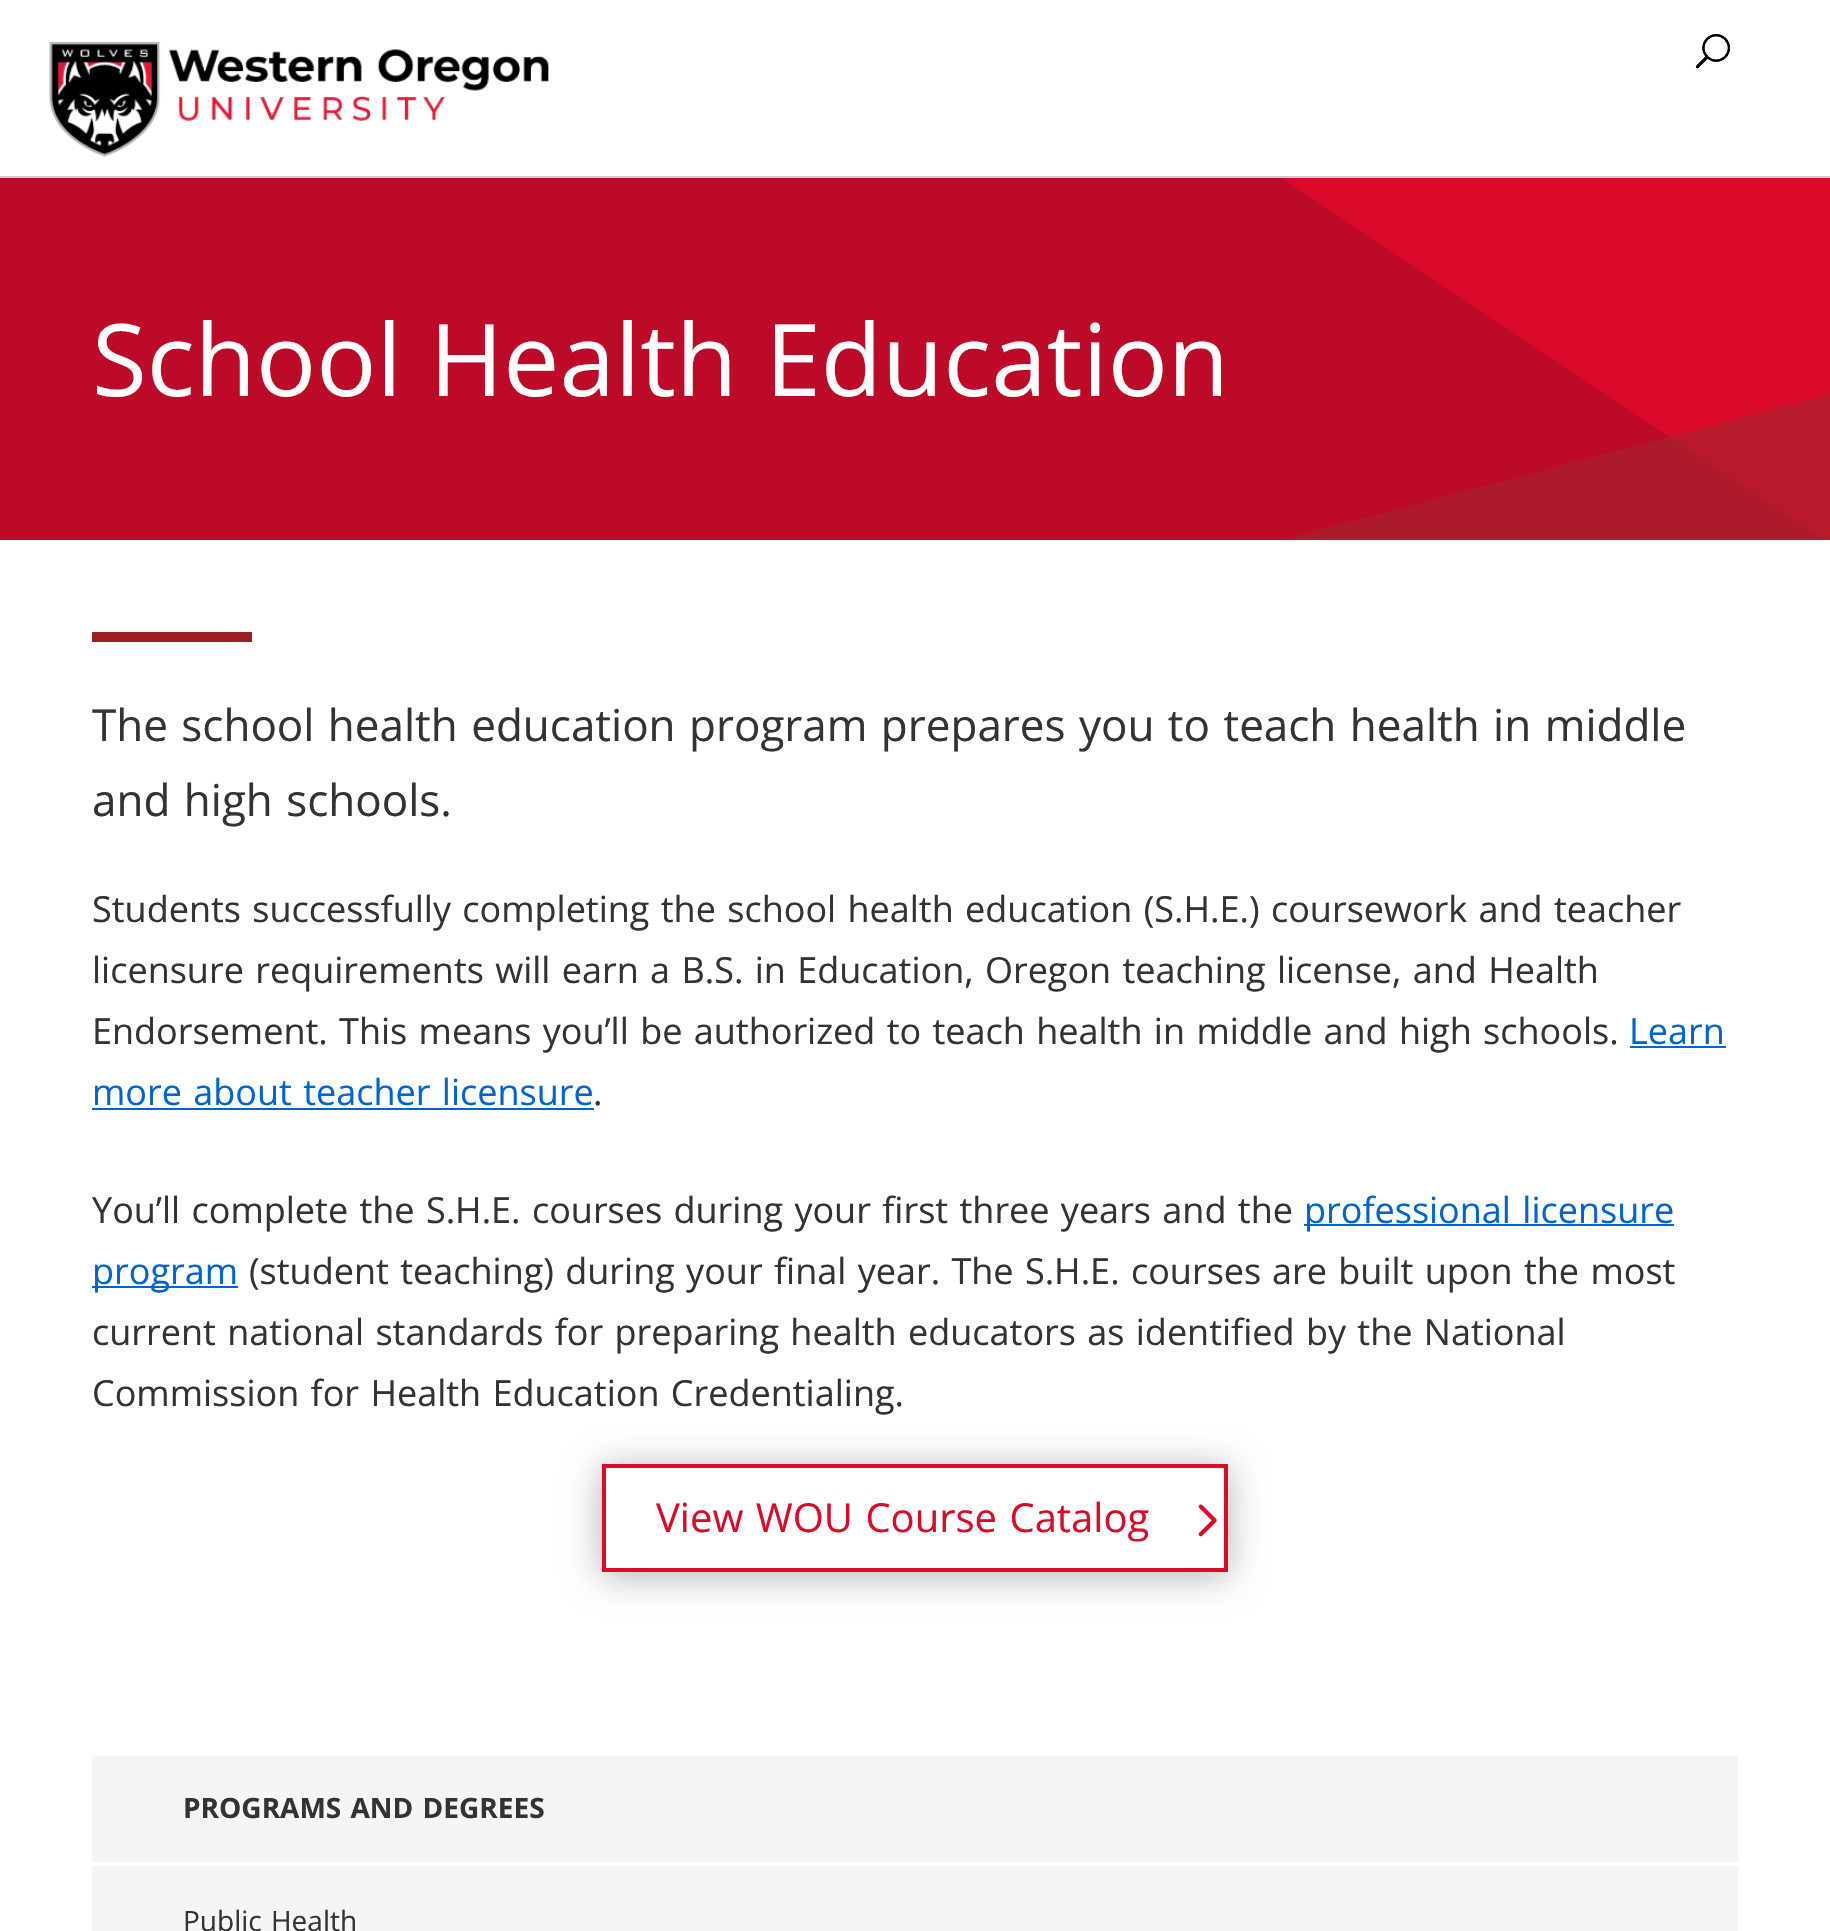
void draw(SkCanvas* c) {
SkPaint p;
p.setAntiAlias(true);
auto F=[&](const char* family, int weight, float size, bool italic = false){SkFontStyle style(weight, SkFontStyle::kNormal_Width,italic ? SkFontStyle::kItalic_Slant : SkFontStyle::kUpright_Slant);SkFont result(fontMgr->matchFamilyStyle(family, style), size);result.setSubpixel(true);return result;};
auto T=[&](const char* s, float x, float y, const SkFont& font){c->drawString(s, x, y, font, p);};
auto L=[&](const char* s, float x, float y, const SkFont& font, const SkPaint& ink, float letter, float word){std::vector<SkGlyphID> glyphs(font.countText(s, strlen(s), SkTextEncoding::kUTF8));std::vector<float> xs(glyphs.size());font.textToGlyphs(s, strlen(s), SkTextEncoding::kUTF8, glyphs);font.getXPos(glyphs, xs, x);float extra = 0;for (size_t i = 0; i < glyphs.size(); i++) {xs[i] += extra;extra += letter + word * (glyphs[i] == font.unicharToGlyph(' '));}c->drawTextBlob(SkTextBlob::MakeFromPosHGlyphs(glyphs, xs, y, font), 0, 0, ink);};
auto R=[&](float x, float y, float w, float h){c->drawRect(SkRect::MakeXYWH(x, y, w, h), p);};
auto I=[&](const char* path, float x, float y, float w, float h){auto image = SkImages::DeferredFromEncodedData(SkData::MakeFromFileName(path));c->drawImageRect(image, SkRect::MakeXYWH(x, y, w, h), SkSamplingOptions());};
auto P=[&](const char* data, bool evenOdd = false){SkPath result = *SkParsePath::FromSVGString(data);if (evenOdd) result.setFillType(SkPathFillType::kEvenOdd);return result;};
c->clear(0xffffffff);
p.setColor(0xffcccccc);
R(0,176,1830,2);
I("1.png",49,41,500,116);
I("2.png",1695,34,35,35);
p.setColor(0xffbe0a29);
R(0,178,1824,362);
auto f1 = F("Open Sans",400,100);
p.setColor(0xffffffff);
L("School Health Education",92,396,f1,p,0,2);
c->save();
c->clipRect(SkRect::MakeXYWH(0,178,1830,362));
p.setColor(0xffdb0a29);
c->drawPath(P("M1830 178v366l-548-366z"),p);
c->restore();
p.setColor(0x99a1252c);
c->drawPath(P("M1830 540h-548l548-146z"),p);
p.setColor(0xff9f1d24);
R(92,632,160,10);
auto f2 = F("Open Sans",400,44);
p.setColor(0xff333333);
L("The school health education program prepares you to teach health in middle",92,741,f2,p,0,2);
L("and high schools.",92,816,f2,p,0,2);
auto f3 = F("Open Sans",400,36);
L("Students successfully completing the school health education (S.H.E.) coursework and teacher",92,922,f3,p,0,2);
L("licensure requirements will earn a B.S. in Education, Oregon teaching license, and Health",92,983,f3,p,0,2);
L("Endorsement. This means you’ll be authorized to teach health in middle and high schools.",92,1044,f3,p,0,2);
p.setColor(0xff0064d1);
T("Learn",1629,1044,f3);
R(1630,1046,96,2);
L("more about teacher licensure",92,1105,f3,p,0,2);
R(92,1108,502,2);
p.setColor(0xff333333);
T(".",593,1105,f3);
L("You’ll complete the S.H.E. courses during your first three years and the",92,1223,f3,p,0,2);
p.setColor(0xff0064d1);
R(1304,1224,370,2);
L("professional licensure",1304,1223,f3,p,0,2);
R(92,1286,146,2);
T("program",92,1284,f3);
p.setColor(0xff333333);
L("(student teaching) during your final year. The S.H.E. courses",249,1284,f3,p,0,2);
L("are built upon the most",1272,1284,f3,p,0,2);
L("current national standards for preparing health educators as identified by the National",92,1345,f3,p,0,2);
L("Commission for Health Education Credentialing.",92,1406,f3,p,0,2);
c->save();
c->clipPath(P("M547 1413h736v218h-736zm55 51h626v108h-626z",true),true);
p.setColor(0x4d000000);
p.setMaskFilter(SkMaskFilter::MakeBlur(kNormal_SkBlurStyle, 18));
c->drawRect(SkRect::MakeXYWH(602,1468,626,108),p);
p.setMaskFilter(nullptr);
c->restore();
p.setStroke(true);
p.setStrokeWidth(4);
p.setColor(0xffdb0a29);
c->drawRect(SkRect::MakeXYWH(604,1466,622,104),p);
auto f4 = F("Open Sans",400,40);
p.setStroke(false);
L("View WOU Course Catalog",656,1532,f4,p,0,2);
I("3.png",1198,1504,19,33);
p.setColor(0xfff5f5f5);
R(92,1756,1646,175);
auto f5 = F("Open Sans",700,28);
p.setColor(0xff333333);
L("PROGRAMS AND DEGREES",183,1818,f5,p,0,2);
p.setColor(0xffffffff);
R(92,1862,1646,4);
auto f6 = F("Open Sans",400,28);
p.setColor(0xff333333);
L("Public Health",183,1931,f6,p,0,2);
}
